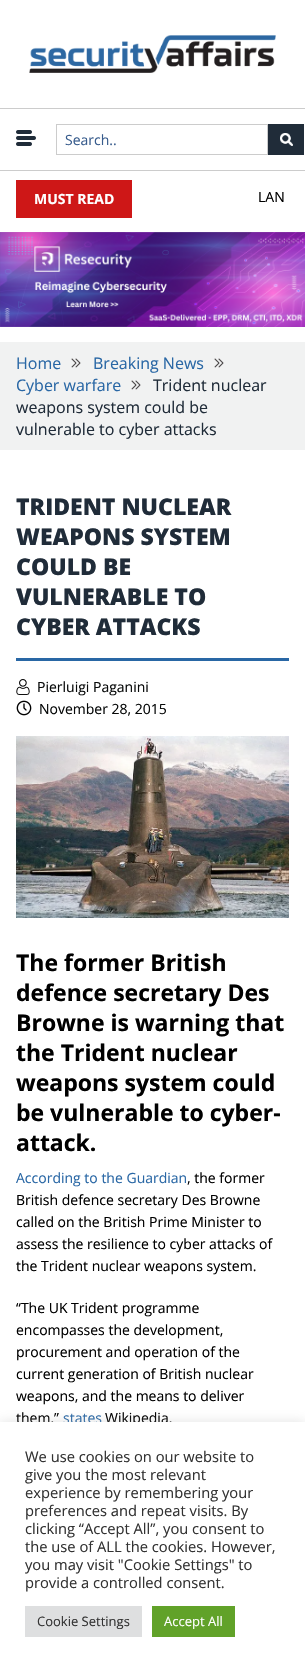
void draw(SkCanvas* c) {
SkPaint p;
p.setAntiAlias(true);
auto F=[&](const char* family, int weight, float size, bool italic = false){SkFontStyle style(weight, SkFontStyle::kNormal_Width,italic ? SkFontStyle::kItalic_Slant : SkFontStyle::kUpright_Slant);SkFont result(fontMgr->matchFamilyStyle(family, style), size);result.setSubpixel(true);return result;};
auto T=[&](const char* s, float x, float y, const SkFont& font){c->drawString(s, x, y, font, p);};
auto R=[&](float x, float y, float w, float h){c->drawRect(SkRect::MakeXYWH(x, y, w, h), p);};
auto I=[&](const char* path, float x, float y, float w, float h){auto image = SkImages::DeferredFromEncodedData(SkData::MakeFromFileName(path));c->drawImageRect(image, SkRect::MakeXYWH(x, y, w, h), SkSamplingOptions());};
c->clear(0xffffffff);
p.setColor(0xffcccccc);
R(0,108,305,1);
R(0,170,305,1);
I("1.png",29,35,247,38);
I("2.png",16,130,20,16);
p.setStroke(true);
p.setStrokeWidth(1);
c->drawRect(SkRect::MakeXYWH(56.5,124.5,211,30),p);
auto f1 = F("Open Sans",400,14);
p.setStroke(false);
p.setColor(0xff385c8d);
T("Search..",65,145,f1);
p.setColor(0xff202c39);
R(268,124,36,31);
I("3.png",280,133,13,13);
p.setColor(0xffce1717);
R(16,180,116,38);
auto f2 = F("Open Sans",700,14);
p.setColor(0xffffffff);
T("MUST READ",34,204,f2);
p.setColor(0xff000000);
T("LAN",258,202,f1);
I("4.png",0,232,305,95);
p.setColor(0xfff1f2f2);
R(0,342,305,108);
auto f3 = F("Open Sans",400,16);
p.setColor(0xff2967a5);
T("Home",16,369,f3);
I("5.png",71,358,10,10);
T("Breaking News",93,369,f3);
I("5.png",214,358,10,10);
T("Cyber warfare",16,391,f3);
I("5.png",131,380,10,10);
p.setColor(0xff202c39);
T("Trident nuclear",153,391,f3);
T("weapons system could be",16,413,f3);
T("vulnerable to cyber attacks",16,435,f3);
auto f4 = F("Open Sans",800,23);
T("TRIDENT NUCLEAR",16,515,f4);
T("WEAPONS SYSTEM",16,545,f4);
T("COULD BE",16,575,f4);
T("VULNERABLE TO",16,605,f4);
T("CYBER ATTACKS",16,635,f4);
p.setColor(0xff2967a5);
R(16,658,273,3);
I("6.png",16,679,14,16);
p.setColor(0xff070909);
T("Pierluigi Paganini",37,692,f1);
I("7.png",16,700,16,16);
T("November 28, 2015",39,714,f1);
I("8.png",16,736,273,182);
auto f5 = F("Open Sans",700,23);
p.setColor(0xff000000);
T("The former British",16,971,f5);
T("defence secretary Des",16,1001,f5);
T("Browne is warning that",16,1031,f5);
T("the Trident nuclear",16,1061,f5);
T("weapons system could",16,1091,f5);
T("be vulnerable to cyber-",16,1121,f5);
T("attack.",16,1151,f5);
p.setColor(0xff2967a5);
T("According to the Guardian",16,1183,f1);
p.setColor(0xff000000);
T(", the former",187,1183,f1);
T("British defence secretary Des Browne",16,1205,f1);
T("called on the British Prime Minister to",16,1227,f1);
T("assess the resilience to cyber attacks of",16,1249,f1);
T("the Trident nuclear weapons system.",16,1271,f1);
T("“The UK Trident programme",16,1313,f1);
T("encompasses the development,",16,1335,f1);
T("procurement and operation of the",16,1357,f1);
T("current generation of British nuclear",16,1379,f1);
T("weapons, and the means to deliver",16,1401,f1);
T("them.”",16,1423,f1);
p.setColor(0xff2967a5);
T("states",63,1423,f1);
p.setColor(0xff000000);
T("Wikipedia.",105,1423,f1);
p.setColor(0x4dacabab);
p.setMaskFilter(SkMaskFilter::MakeBlur(kNormal_SkBlurStyle, 5));
c->drawRect(SkRect::MakeXYWH(0,1421,305,245),p);
p.setMaskFilter(nullptr);
p.setColor(0xffffffff);
R(0,1422,305,245);
auto f6 = F("Open Sans",400,14.7);
p.setColor(0xff333333);
T("We use cookies on our website to",25,1462,f6);
T("give you the most relevant",25,1480,f6);
T("experience by remembering your",25,1498,f6);
T("preferences and repeat visits. By",25,1516,f6);
T("clicking “Accept All”, you consent to",25,1534,f6);
T("the use of ALL the cookies. However,",25,1552,f6);
T("you may visit \"Cookie Settings\" to",25,1570,f6);
T("provide a controlled consent.",25,1588,f6);
p.setColor(0xffdedfe0);
R(25,1606,117,31);
auto f7 = F("Open Sans",400,13);
p.setColor(0xff333333);
T("Cookie Settings",37,1626,f7);
p.setColor(0xff61a229);
R(152,1606,83,31);
p.setColor(0xffffffff);
T("Accept All",164,1626,f7);
}
